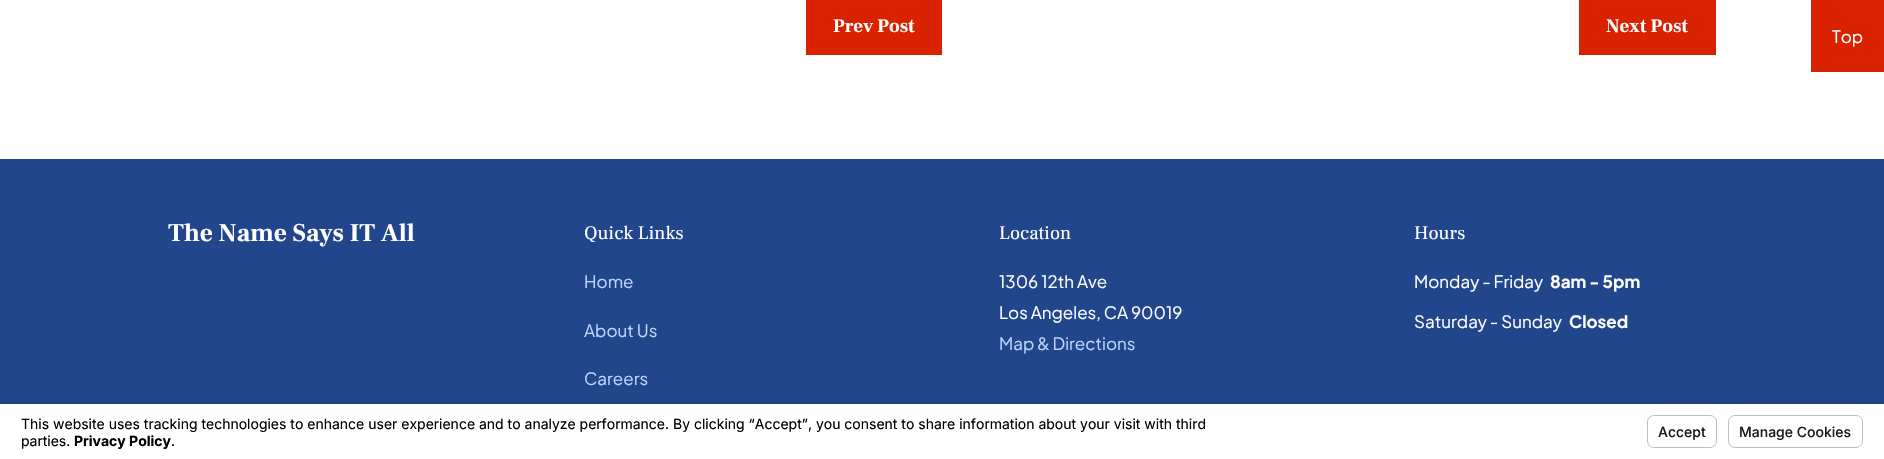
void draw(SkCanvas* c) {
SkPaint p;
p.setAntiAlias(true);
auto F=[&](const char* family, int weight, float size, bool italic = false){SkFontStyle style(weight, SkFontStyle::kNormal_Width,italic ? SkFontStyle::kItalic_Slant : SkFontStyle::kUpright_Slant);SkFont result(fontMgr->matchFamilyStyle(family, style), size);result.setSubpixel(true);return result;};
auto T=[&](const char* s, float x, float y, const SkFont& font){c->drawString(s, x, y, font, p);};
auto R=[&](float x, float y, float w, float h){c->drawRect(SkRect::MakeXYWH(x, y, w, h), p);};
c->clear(0xffffffff);
p.setColor(0xffd82200);
R(806,0,136,55);
auto f1 = F("Frank Ruhl Libre",700,19);
p.setColor(0xffffffff);
T("Prev Post",833,32,f1);
p.setColor(0xffd82200);
R(1579,0,137,55);
p.setColor(0xffffffff);
T("Next Post",1606,32,f1);
p.setColor(0xffd82200);
R(1811,0,73,72);
auto f2 = F("Plus Jakarta Sans",400,17);
p.setColor(0xffffffff);
T("Top",1832,43,f2);
p.setColor(0xff22468b);
R(0,159,1884,245);
auto f3 = F("Frank Ruhl Libre",700,25.5);
p.setColor(0xffffffff);
T("The Name Says IT All",168,241,f3);
auto f4 = F("Frank Ruhl Libre",400,19);
T("Quick Links",584,239,f4);
p.setColor(0xffc0d6ff);
T("Home",584,288,f2);
T("About Us",584,337,f2);
T("Careers",584,385,f2);
p.setColor(0xffffffff);
T("Location",999,239,f4);
T("1306 12th Ave",999,288,f2);
T("Los Angeles, CA 90019",999,319,f2);
p.setColor(0xffc0d6ff);
T("Map & Directions",999,350,f2);
p.setColor(0xffffffff);
T("Hours",1414,239,f4);
T("Monday - Friday",1414,288,f2);
auto f5 = F("Plus Jakarta Sans",700,17);
T("8am - 5pm",1550,288,f5);
T("Saturday - Sunday",1414,328,f2);
T("Closed",1569,328,f5);
p.setColor(0x0d000000);
p.setMaskFilter(SkMaskFilter::MakeBlur(kNormal_SkBlurStyle, 1.5));
c->drawRect(SkRect::MakeXYWH(0,400,1884,55),p);
p.setMaskFilter(nullptr);
p.setColor(0xffffffff);
R(0,404,1884,52);
auto f6 = F("Inter",400,14);
p.setColor(0xff000000);
T("This website uses tracking technologies to enhance user experience and to analyze performance. By clicking “Accept”, you consent to share information about your visit with third",21,429,f6);
T("parties.",21,446,f6);
auto f7 = F("Inter",700,14);
T("Privacy Policy",74,446,f7);
T(".",171,446,f6);
p.setStroke(true);
p.setStrokeWidth(1);
p.setColor(0xffbcbec7);
c->drawRoundRect(SkRect::MakeXYWH(1647.5,415.5,69,32),6.5,6.5,p);
auto f8 = F("Inter",500,14);
p.setStroke(false);
p.setColor(0xff191919);
T("Accept",1658,437,f8);
p.setStroke(true);
p.setColor(0xffbcbec7);
c->drawRoundRect(SkRect::MakeXYWH(1728.5,415.5,134,32),6.5,6.5,p);
p.setStroke(false);
p.setColor(0xff191919);
T("Manage Cookies",1739,437,f8);
}
